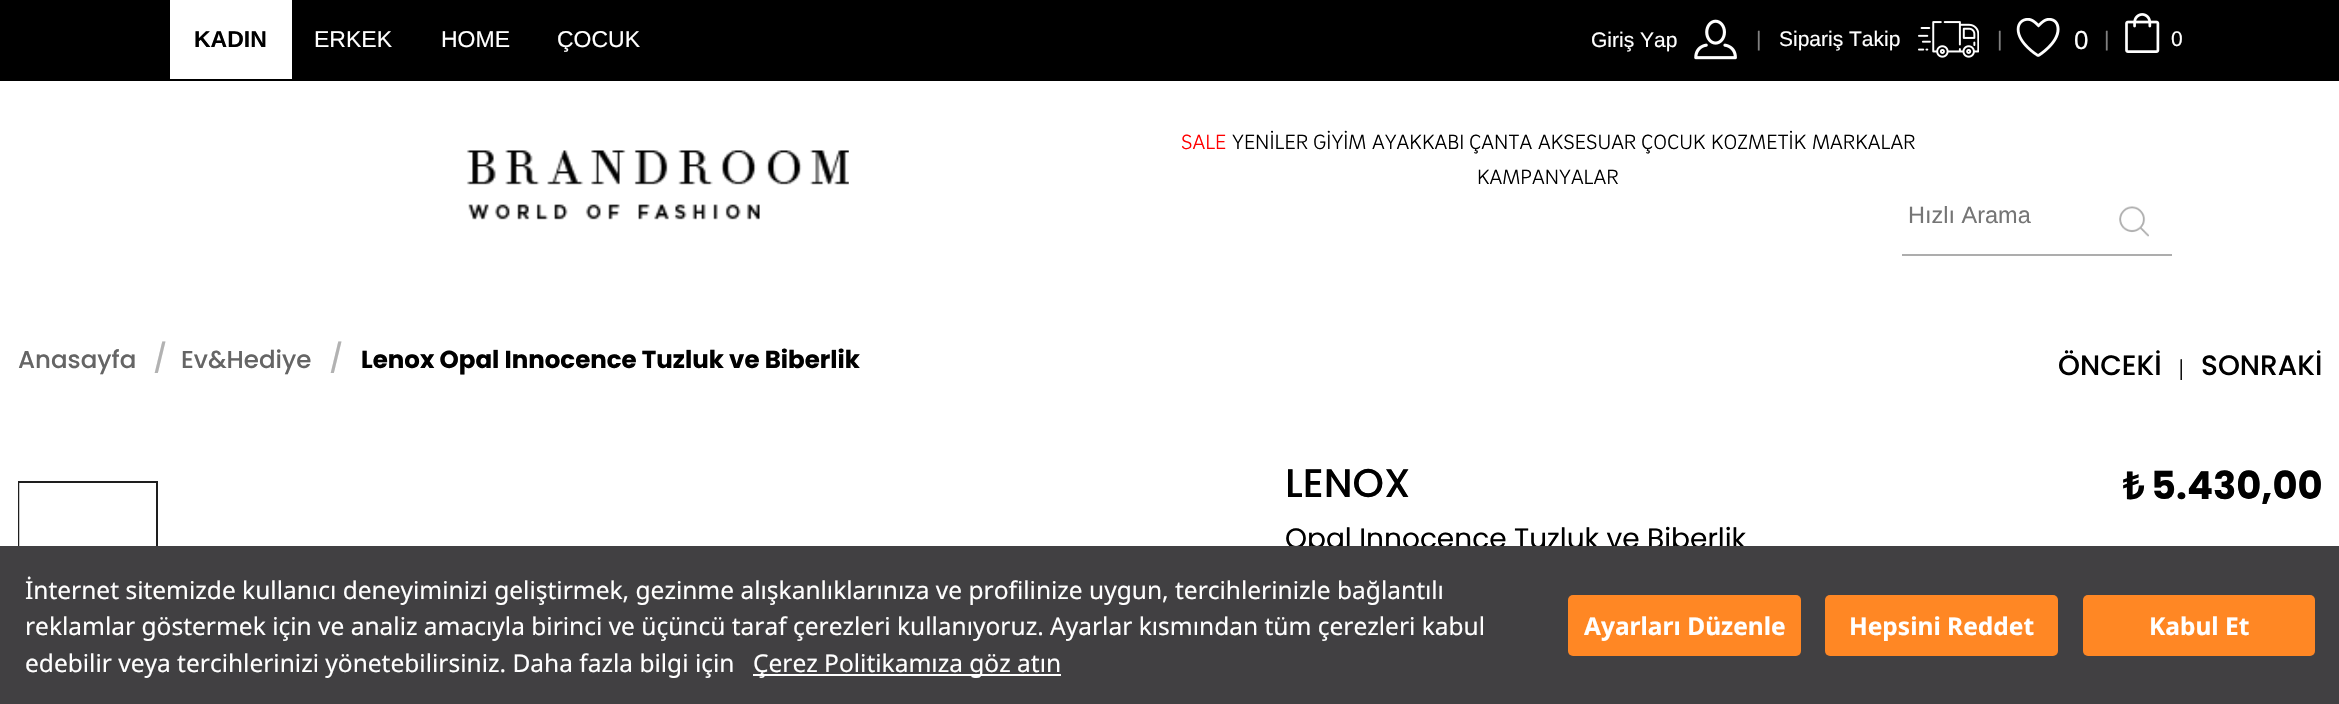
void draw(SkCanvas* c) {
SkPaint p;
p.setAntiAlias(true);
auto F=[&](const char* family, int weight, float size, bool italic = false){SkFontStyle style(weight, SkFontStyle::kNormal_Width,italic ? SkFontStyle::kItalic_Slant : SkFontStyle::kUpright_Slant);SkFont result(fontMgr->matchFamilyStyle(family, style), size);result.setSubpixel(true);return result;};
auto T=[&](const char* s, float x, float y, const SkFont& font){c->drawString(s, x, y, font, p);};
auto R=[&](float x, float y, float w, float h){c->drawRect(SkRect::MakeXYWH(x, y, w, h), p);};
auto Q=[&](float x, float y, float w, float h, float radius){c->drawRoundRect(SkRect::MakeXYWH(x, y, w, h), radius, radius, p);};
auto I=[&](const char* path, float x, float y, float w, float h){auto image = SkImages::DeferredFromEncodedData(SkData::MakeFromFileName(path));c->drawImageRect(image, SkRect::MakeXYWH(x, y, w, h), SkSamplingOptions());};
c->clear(0xffffffff);
p.setColor(0xff000000);
R(0,0,2339,81);
p.setColor(0xffffffff);
R(170,0,122,79);
auto f1 = F("Liberation Sans",700,23);
p.setColor(0xff000000);
T("KADIN",194,47,f1);
auto f2 = F("Liberation Sans",400,23);
p.setColor(0xffffffff);
T("ERKEK",314,47,f2);
T("HOME",441,47,f2);
T("ÇOCUK",557,47,f2);
auto f3 = F("Liberation Sans",400,21);
T("Giriş Yap",1591,47,f3);
I("1.png",1694,19,43,41);
p.setColor(0xff808080);
T("|",1756,46,f3);
p.setColor(0xffffffff);
T("Sipariş Takip",1779,46,f3);
I("2.png",1918,21,61,37);
p.setColor(0xff808080);
T("|",1997,46,f3);
I("3.png",2016,18,44,39);
auto f4 = F("Liberation Sans",400,26);
p.setColor(0xffffffff);
T("0",2074,49,f4);
p.setColor(0xff808080);
T("|",2104,46,f3);
I("4.png",2125,13,35,40);
p.setColor(0xffffffff);
T("0",2171,46,f3);
I("5.png",466,150,383,70);
auto f5 = F("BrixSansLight",300,21);
p.setColor(0xffff0000);
T("SALE",1181,149,f5);
p.setColor(0xff000000);
T("YENİLER",1232,149,f5);
T("GİYİM",1313,149,f5);
T("AYAKKABI",1372,149,f5);
T("ÇANTA",1469,149,f5);
T("AKSESUAR",1538,149,f5);
T("ÇOCUK",1641,149,f5);
T("KOZMETİK",1711,149,f5);
T("MARKALAR",1812,149,f5);
T("KAMPANYALAR",1477,184,f5);
p.setColor(0xffadadad);
R(1902,254,270,2);
auto f6 = F("Liberation Sans",400,23.5);
p.setColor(0xff757575);
T("Hızlı Arama",1908,223,f6);
I("6.png",2119,206,30,31);
auto f7 = F("Poppins",500,24.5);
p.setColor(0xff656565);
T("Anasayfa",18,368,f7);
auto f8 = F("Poppins",500,28);
p.setColor(0xffb2b2b2);
T("/",153,368,f8);
p.setColor(0xff656565);
T("Ev&Hediye",181,368,f7);
p.setColor(0xffb2b2b2);
T("/",329,368,f8);
auto f9 = F("Poppins",700,24.5);
p.setColor(0xff000000);
T("Lenox Opal Innocence Tuzluk ve Biberlik",361,368,f9);
T("ÖNCEKİ",2058,375,f8);
auto f10 = F("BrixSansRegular",400,23);
T("|",2179,375,f10);
T("SONRAKİ",2201,375,f8);
p.setStroke(true);
p.setStrokeWidth(2);
p.setColor(0xff1e1e1e);
c->drawRect(SkRect::MakeXYWH(19,482,138,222),p);
I("7.png",19,483,137,63);
auto f11 = F("Poppins",500,40);
p.setStroke(false);
p.setColor(0xff000000);
T("LENOX",1285,497,f11);
auto f12 = F("Poppins",400,28);
T("Opal Innocence Tuzluk ve Biberlik",1285,548,f12);
auto f13 = F("Noto Sans",700,38.5);
T("₺",2123,499,f13);
auto f14 = F("Poppins",700,38.5);
T("5.430,00",2151,499,f14);
p.setColor(0xff414042);
R(0,546,2339,158);
auto f15 = F("Noto Sans",400,24.5);
p.setColor(0xffffffff);
T("İnternet sitemizde kullanıcı deneyiminizi geliştirmek, gezinme alışkanlıklarınıza ve profilinize uygun, tercihlerinizle bağlantılı",25,599,f15);
T("reklamlar göstermek için ve analiz amacıyla birinci ve üçüncü taraf çerezleri kullanıyoruz. Ayarlar kısmından tüm çerezleri kabul",25,635,f15);
T("edebilir veya tercihlerinizi yönetebilirsiniz. Daha fazla bilgi için",25,672,f15);
R(753,674,308,2);
T("Çerez Politikamıza göz atın",753,672,f15);
p.setColor(0xffff8724);
Q(1568,595,233,61,5);
auto f16 = F("Noto Sans",700,24.5);
p.setColor(0xffffffff);
T("Ayarları Düzenle",1584,635,f16);
p.setColor(0xffff8724);
Q(1825,595,233,61,5);
p.setColor(0xffffffff);
T("Hepsini Reddet",1849,635,f16);
p.setColor(0xffff8724);
Q(2083,595,232,61,5);
p.setColor(0xffffffff);
T("Kabul Et",2149,635,f16);
}
